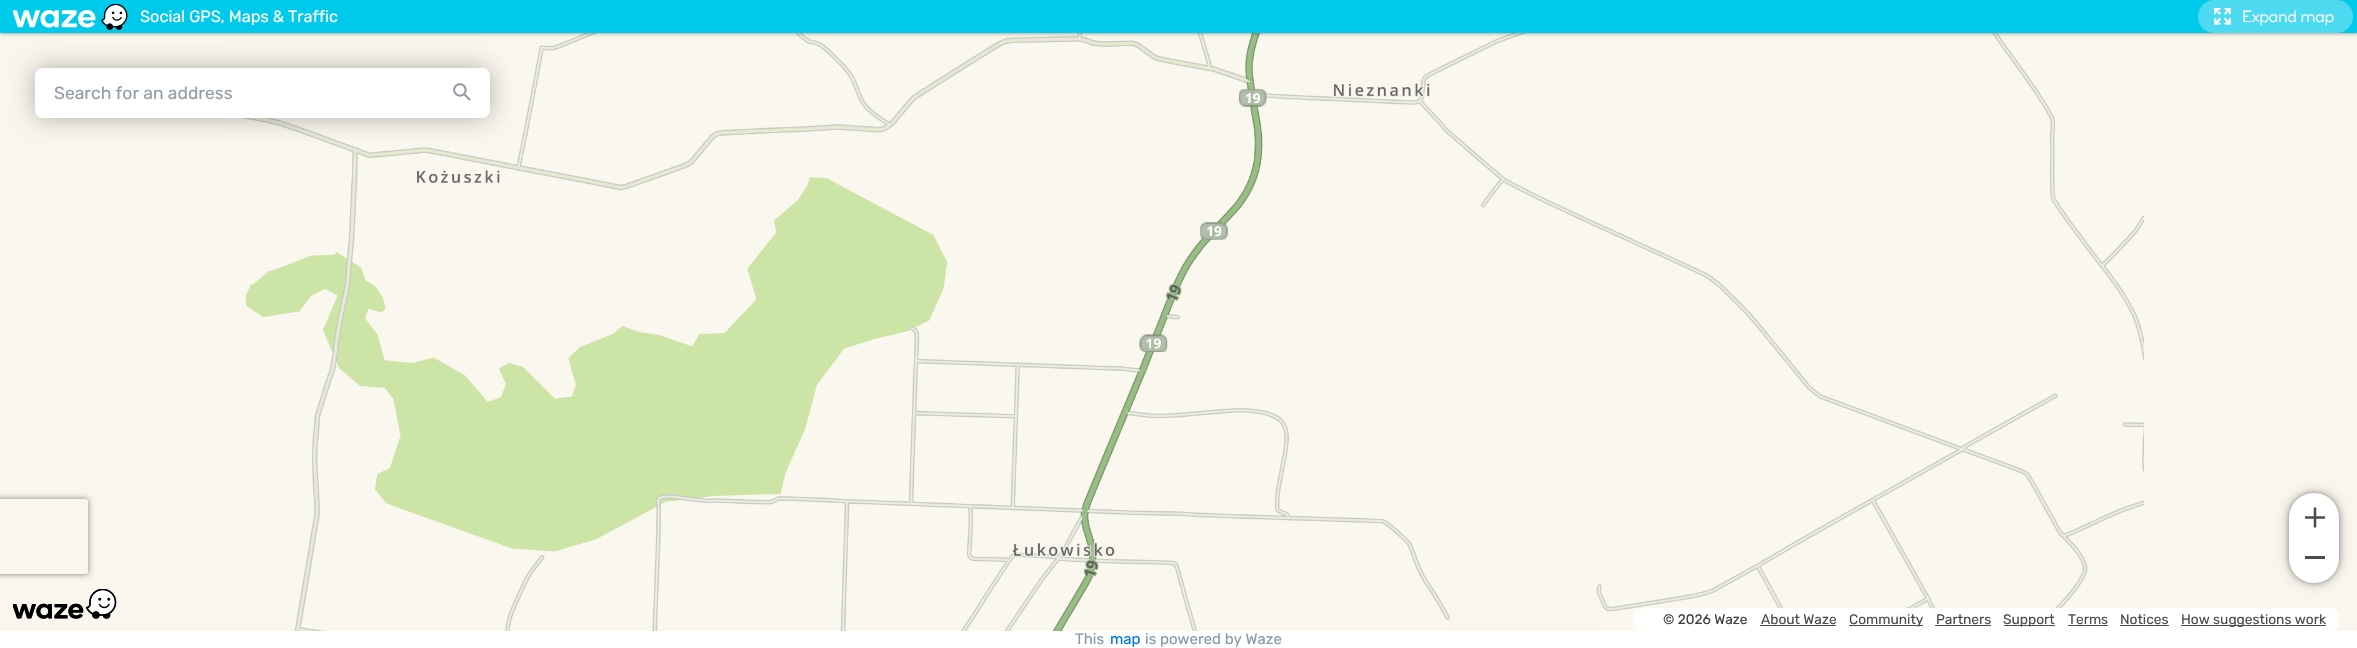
void draw(SkCanvas* c) {
SkPaint p;
p.setAntiAlias(true);
auto F=[&](const char* family, int weight, float size, bool italic = false){SkFontStyle style(weight, SkFontStyle::kNormal_Width,italic ? SkFontStyle::kItalic_Slant : SkFontStyle::kUpright_Slant);SkFont result(fontMgr->matchFamilyStyle(family, style), size);result.setSubpixel(true);return result;};
auto T=[&](const char* s, float x, float y, const SkFont& font){c->drawString(s, x, y, font, p);};
auto R=[&](float x, float y, float w, float h){c->drawRect(SkRect::MakeXYWH(x, y, w, h), p);};
auto Q=[&](float x, float y, float w, float h, float radius){c->drawRoundRect(SkRect::MakeXYWH(x, y, w, h), radius, radius, p);};
auto I=[&](const char* path, float x, float y, float w, float h){auto image = SkImages::DeferredFromEncodedData(SkData::MakeFromFileName(path));c->drawImageRect(image, SkRect::MakeXYWH(x, y, w, h), SkSamplingOptions());};
auto P=[&](const char* data, bool evenOdd = false){SkPath result = *SkParsePath::FromSVGString(data);if (evenOdd) result.setFillType(SkPathFillType::kEvenOdd);return result;};
c->clear(0xffffffff);
p.setColor(0xfff9f6ed);
R(0,33,2357,598);
I("4.png",544,33,320,297);
I("5.png",864,33,320,297);
I("6.png",1184,33,320,246);
I("7.png",1504,33,261,297);
I("8.png",1992,33,152,297);
p.setColor(0x80000000);
p.setMaskFilter(SkMaskFilter::MakeBlur(kNormal_SkBlurStyle, 2));
c->drawRect(SkRect::MakeXYWH(0,0,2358,33),p);
p.setMaskFilter(nullptr);
I("3.png",224,45,320,285);
p.setColor(0x4d000000);
p.setMaskFilter(SkMaskFilter::MakeBlur(kNormal_SkBlurStyle, 12.5));
c->drawRoundRect(SkRect::MakeXYWH(35,68,455,50),8,8,p);
p.setMaskFilter(nullptr);
p.setColor(0xff00caeb);
R(0,0,2357,33);
I("1.png",13,4,115,26);
auto f1 = F("Rubik",400,16.25);
p.setColor(0xffffffff);
T("Social GPS, Maps & Traffic",140,22,f1);
p.setColor(0xff4ddaf1);
Q(2198,0,155,33,16.5);
I("2.png",2214,7,17,18);
auto f2 = F("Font",300,16.25);
p.setColor(0xffffffff);
T("Expand map",2242,22,f2);
c->save();
c->clipPath(P("M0 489h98v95h-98zm-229.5 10h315c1.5 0 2.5 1 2.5 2.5v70c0 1.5-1 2.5-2.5 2.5h-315c-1.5 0-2.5-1-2.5-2.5v-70c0-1.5 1-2.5 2.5-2.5z",true),true);
p.setColor(0xff808080);
p.setMaskFilter(SkMaskFilter::MakeBlur(kNormal_SkBlurStyle, 3));
c->drawRoundRect(SkRect::MakeXYWH(-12,499,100,75),2.5,2.5,p);
p.setMaskFilter(nullptr);
c->restore();
I("9.png",294,330,250,301);
I("10.png",544,330,320,301);
I("11.png",864,330,320,301);
I("12.png",1184,408,266,223);
I("13.png",1596,330,228,301);
I("14.png",1824,330,320,301);
p.setColor(0xffffffff);
Q(35,68,455,50,8);
auto f3 = F("Rubik",400,17.5);
p.setColor(0xff919da9);
T("Search for an address",54,99,f3);
{
const SkColor colors[] = {0x00ffffff,0xffffffff,0xffffffff};
const float stops[] = {0,.25,1};
const SkPoint ends[] = {{428,91}, {490,91}};
p.setShader(SkGradientShader::MakeLinear(ends, colors, stops, 3, SkTileMode::kClamp));
p.setAlpha(255);
}
Q(428,68,62,47,8);
I("15.png",453,83,18,18);
I("16.png",13,589,104,30);
p.setShader(nullptr);
p.setColor(0x4d000000);
p.setMaskFilter(SkMaskFilter::MakeBlur(kNormal_SkBlurStyle, 6));
c->drawRoundRect(SkRect::MakeXYWH(2289,493,50,90),25,25,p);
p.setMaskFilter(nullptr);
p.setMaskFilter(SkMaskFilter::MakeBlur(kNormal_SkBlurStyle, 2.5));
c->drawRoundRect(SkRect::MakeXYWH(2289,493,50,90),25,25,p);
p.setMaskFilter(nullptr);
p.setColor(0xffffffff);
c->drawPath(P("M2314 493c14 0 25 11 25 25v20h-50v-20c0-14 11-25 25-25z"),p);
I("17.png",2305,507,20,21);
c->drawPath(P("M2289 538h50v20c0 14-11 25-25 25c-14 0-25-11-25-25z"),p);
p.setColor(0xff4c4c4c);
R(2305,556,20,3);
p.setColor(0xe6ffffff);
Q(1633,608,706,23,8);
auto f4 = F("Rubik",400,13.75);
p.setColor(0xff3d3d3d);
T("© 2026 Waze",1663,624,f4);
p.setColor(0xff4c4c4c);
T("About Waze",1761,624,f4);
R(1760,625,76,1);
R(1849,625,74,1);
T("Community",1849,624,f4);
T("Partners",1936,624,f4);
R(1935,625,56,1);
R(2004,625,51,1);
T("Support",2003,624,f4);
T("Terms",2068,624,f4);
R(2068,625,40,1);
T("Notices",2120,624,f4);
R(2120,625,49,1);
R(2181,625,145,1);
T("How suggestions work",2181,624,f4);
auto f5 = F("Rubik",400,15);
p.setColor(0xff859ba6);
T("This",1075,644,f5);
p.setColor(0xff0075e3);
T("map",1110,644,f5);
p.setColor(0xff859ba6);
T("is powered by Waze",1145,644,f5);
}
